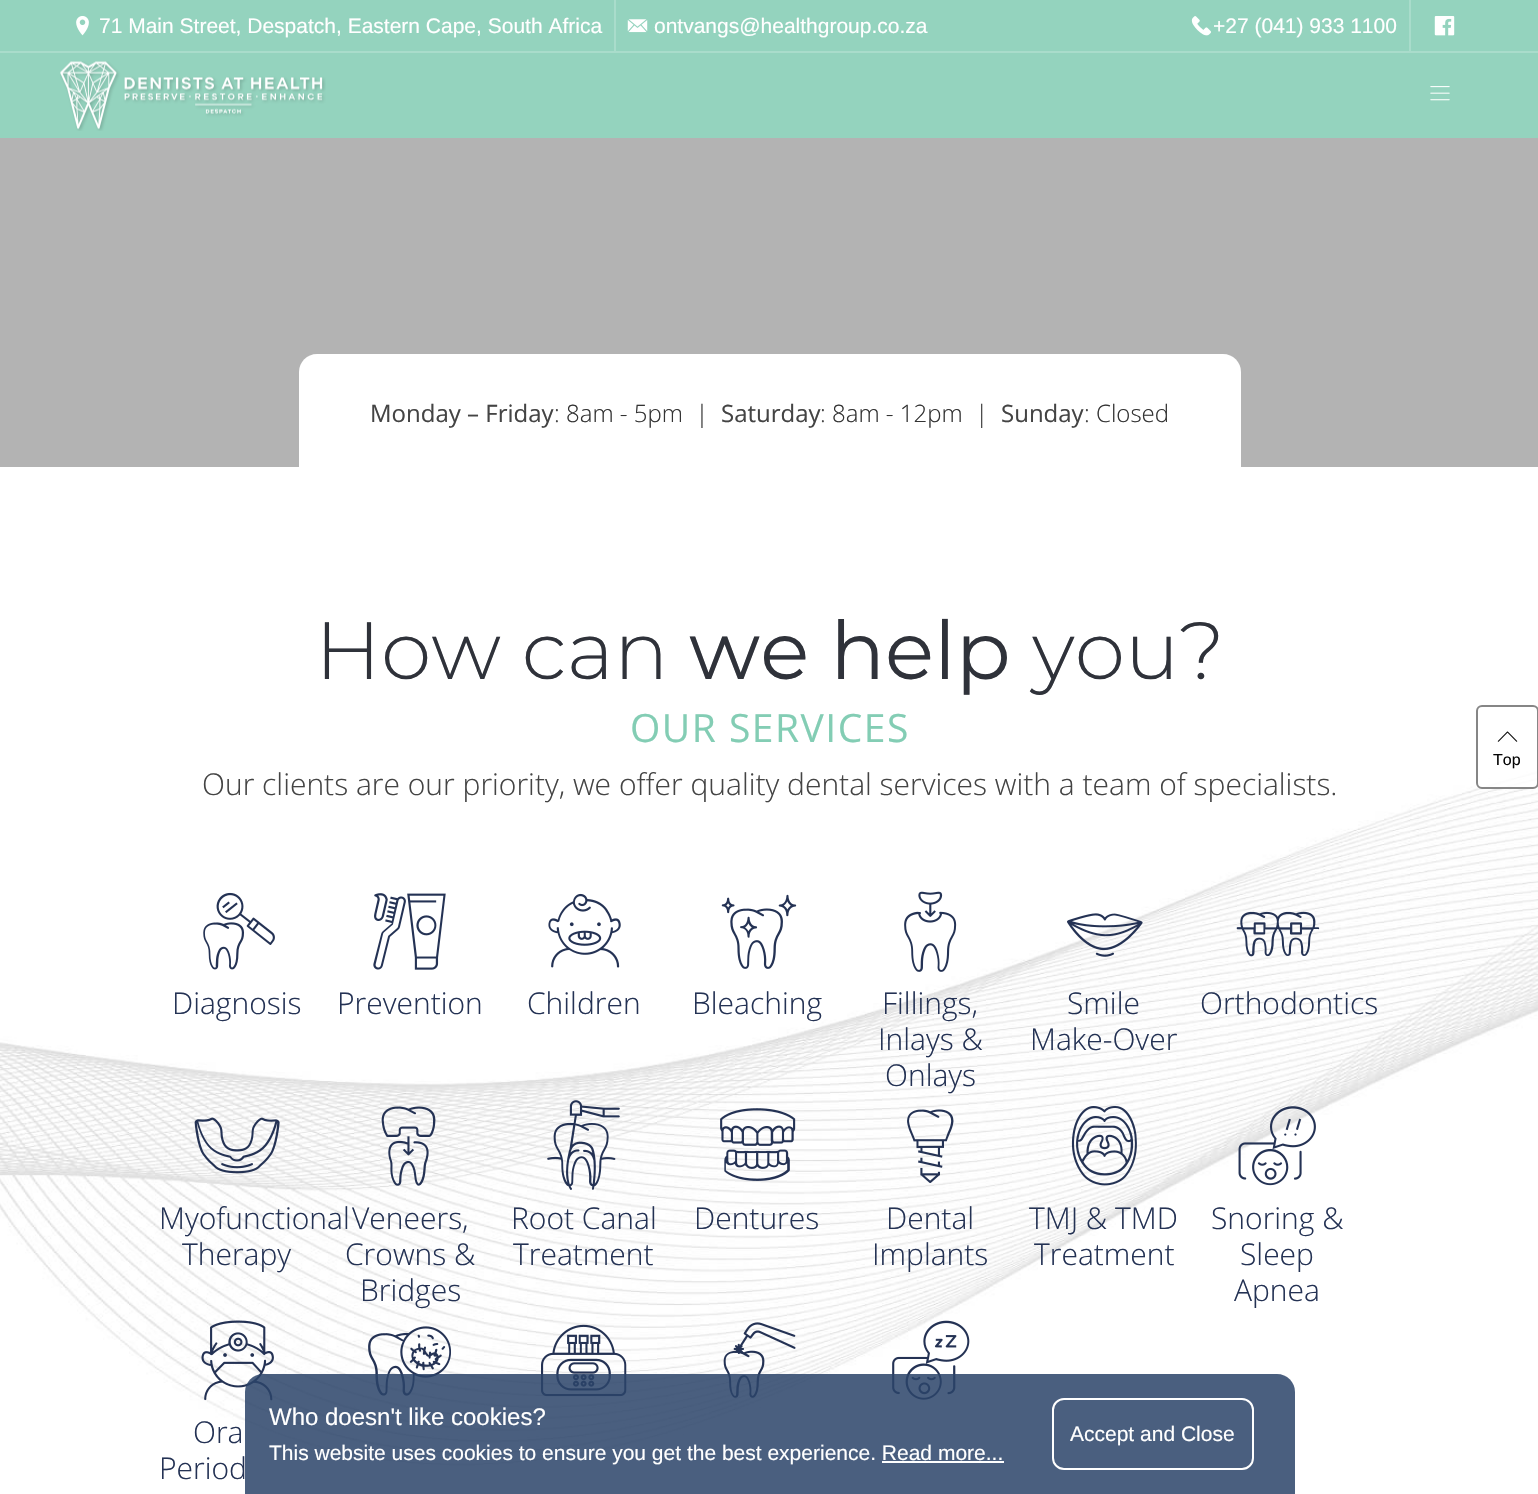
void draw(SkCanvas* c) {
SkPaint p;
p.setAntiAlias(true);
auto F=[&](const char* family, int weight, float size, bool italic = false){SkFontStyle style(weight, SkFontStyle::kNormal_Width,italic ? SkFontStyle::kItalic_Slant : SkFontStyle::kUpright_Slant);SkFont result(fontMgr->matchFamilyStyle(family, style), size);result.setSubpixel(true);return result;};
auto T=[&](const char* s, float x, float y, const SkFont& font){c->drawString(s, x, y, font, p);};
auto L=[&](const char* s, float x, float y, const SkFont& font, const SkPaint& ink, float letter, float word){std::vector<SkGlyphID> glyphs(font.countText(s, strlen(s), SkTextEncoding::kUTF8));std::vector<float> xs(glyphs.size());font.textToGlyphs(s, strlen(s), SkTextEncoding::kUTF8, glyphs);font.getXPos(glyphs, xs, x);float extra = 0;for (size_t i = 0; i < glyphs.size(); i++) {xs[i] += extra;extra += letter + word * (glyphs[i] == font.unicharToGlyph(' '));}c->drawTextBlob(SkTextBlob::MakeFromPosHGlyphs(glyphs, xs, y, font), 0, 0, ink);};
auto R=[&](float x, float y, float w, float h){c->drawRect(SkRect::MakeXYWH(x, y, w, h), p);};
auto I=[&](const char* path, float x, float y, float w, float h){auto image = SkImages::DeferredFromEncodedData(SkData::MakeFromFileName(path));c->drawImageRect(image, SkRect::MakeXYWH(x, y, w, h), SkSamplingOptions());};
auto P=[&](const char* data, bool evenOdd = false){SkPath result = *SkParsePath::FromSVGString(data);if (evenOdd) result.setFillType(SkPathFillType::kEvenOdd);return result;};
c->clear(0xffffffff);
p.setColor(0xff94d3be);
R(0,0,1538,51);
p.setColor(0xffa9dccb);
R(0,51,1538,2);
R(614,0,2,51);
I("1.png",76,16,13,20);
auto f1 = F("Liberation Sans",400,21);
p.setColor(0xffffffff);
T("71 Main Street, Despatch, Eastern Cape, South Africa",99,33,f1);
I("2.png",627,19,21,14);
T("ontvangs@healthgroup.co.za",654,33,f1);
p.setColor(0xffa9dccb);
R(1409,0,2,51);
I("3.png",1191,16,20,20);
p.setColor(0xffffffff);
T("+27 (041) 933 1100",1213,33,f1);
I("4.png",1434,16,21,20);
p.setColor(0xff94d3be);
R(0,53,1538,85);
I("5.png",60,61,266,70);
I("6.png",1430,86,20,15);
p.setColor(0xffb3b3b3);
R(0,138,1538,329);
p.setColor(0xffffffff);
c->drawPath(P("M317 354h906c10 0 18 8 18 18v102h-942v-102c0-10 8-18 18-18z"),p);
auto f2 = F("Open Sans",400,24);
p.setColor(0xff444444);
T("Monday – Friday",370,422,f2);
auto f3 = F("Open Sans",300,24);
T(":",554,422,f3);
p.setColor(0xff333333);
T("8am - 5pm  |",566,422,f3);
p.setColor(0xff444444);
T("Saturday",721,422,f2);
T(":",820,422,f3);
p.setColor(0xff333333);
T("8am - 12pm  |",832,422,f3);
p.setColor(0xff444444);
T("Sunday",1001,422,f2);
T(":",1084,422,f3);
p.setColor(0xff333333);
T("Closed",1096,422,f3);
I("7.png",0,771,1538,695);
auto f4 = F("Montserrat",300,81);
p.setColor(0xff2f323a);
T("How can",315,679,f4);
auto f5 = F("Montserrat",400,81);
T("we help",689,679,f5);
T("you?",1032,679,f4);
auto f6 = F("Open Sans",400,39);
p.setColor(0xff83cdb4);
L("OUR SERVICES",630,742,f6,p,1.5,0);
auto f7 = F("Open Sans",300,30);
p.setColor(0xff444444);
T("Our clients are our priority, we offer quality dental services with a team of specialists.",202,795,f7);
I("8.png",203,892,72,78);
p.setColor(0xff243254);
T("Diagnosis",172,1014,f7);
I("9.png",373,893,73,77);
T("Prevention",337,1014,f7);
I("10.png",548,893,73,75);
T("Children",527,1014,f7);
I("11.png",721,894,76,75);
T("Bleaching",692,1014,f7);
I("12.png",904,891,53,81);
T("Fillings,",882,1014,f7);
T("Inlays &",878,1050,f7);
T("Onlays",885,1086,f7);
I("13.png",1067,913,76,44);
T("Smile",1067,1014,f7);
T("Make-Over",1030,1050,f7);
I("14.png",1236,911,84,46);
T("Orthodontics",1200,1014,f7);
I("15.png",194,1117,86,57);
T("Myofunctional",159,1229,f7);
T("Therapy",182,1265,f7);
I("16.png",381,1106,55,80);
T("Veneers,",352,1229,f7);
T("Crowns &",345,1265,f7);
T("Bridges",360,1301,f7);
I("17.png",547,1100,73,90);
T("Root Canal",511,1229,f7);
T("Treatment",513,1265,f7);
I("18.png",720,1108,76,73);
T("Dentures",694,1229,f7);
I("19.png",907,1109,47,74);
T("Dental",886,1229,f7);
T("Implants",872,1265,f7);
I("20.png",1071,1106,66,80);
T("TMJ & TMD",1029,1229,f7);
T("Treatment",1034,1265,f7);
I("21.png",1238,1106,78,80);
T("Snoring &",1211,1229,f7);
T("Sleep",1240,1265,f7);
T("Apnea",1234,1301,f7);
I("22.png",368,1326,83,70);
I("23.png",541,1324,86,73);
I("24.png",723,1322,73,76);
I("25.png",892,1320,78,80);
I("26.png",201,1320,73,81);
T("Ora",193,1443,f7);
T("Period",159,1479,f7);
p.setColor(0xccffffff);
c->drawRoundRect(SkRect::MakeXYWH(1477,706,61,82),5,5,p);
p.setStroke(true);
p.setStrokeWidth(2);
p.setColor(0xff868686);
c->drawRoundRect(SkRect::MakeXYWH(1477,706,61,82),5,5,p);
I("27.png",1497,731,21,11);
auto f8 = F("Liberation Sans",400,16);
p.setStroke(false);
p.setColor(0xff050505);
T("Top",1493,765,f8);
p.setColor(0xd92a4368);
c->drawPath(P("M263 1374h1014c10 0 18 8 18 18v102h-1050v-102c0-10 8-18 18-18z"),p);
auto f9 = F("Liberation Sans",400,24);
p.setColor(0xffffffff);
T("Who doesn't like cookies?",269,1425,f9);
T("This website uses cookies to ensure you get the best experience. Read more...",269,1460,f1);
R(882,1461,122,2);
p.setStroke(true);
c->drawRoundRect(SkRect::MakeXYWH(1053,1399,200,70),11,11,p);
p.setStroke(false);
T("Accept and Close",1070,1441,f1);
}
